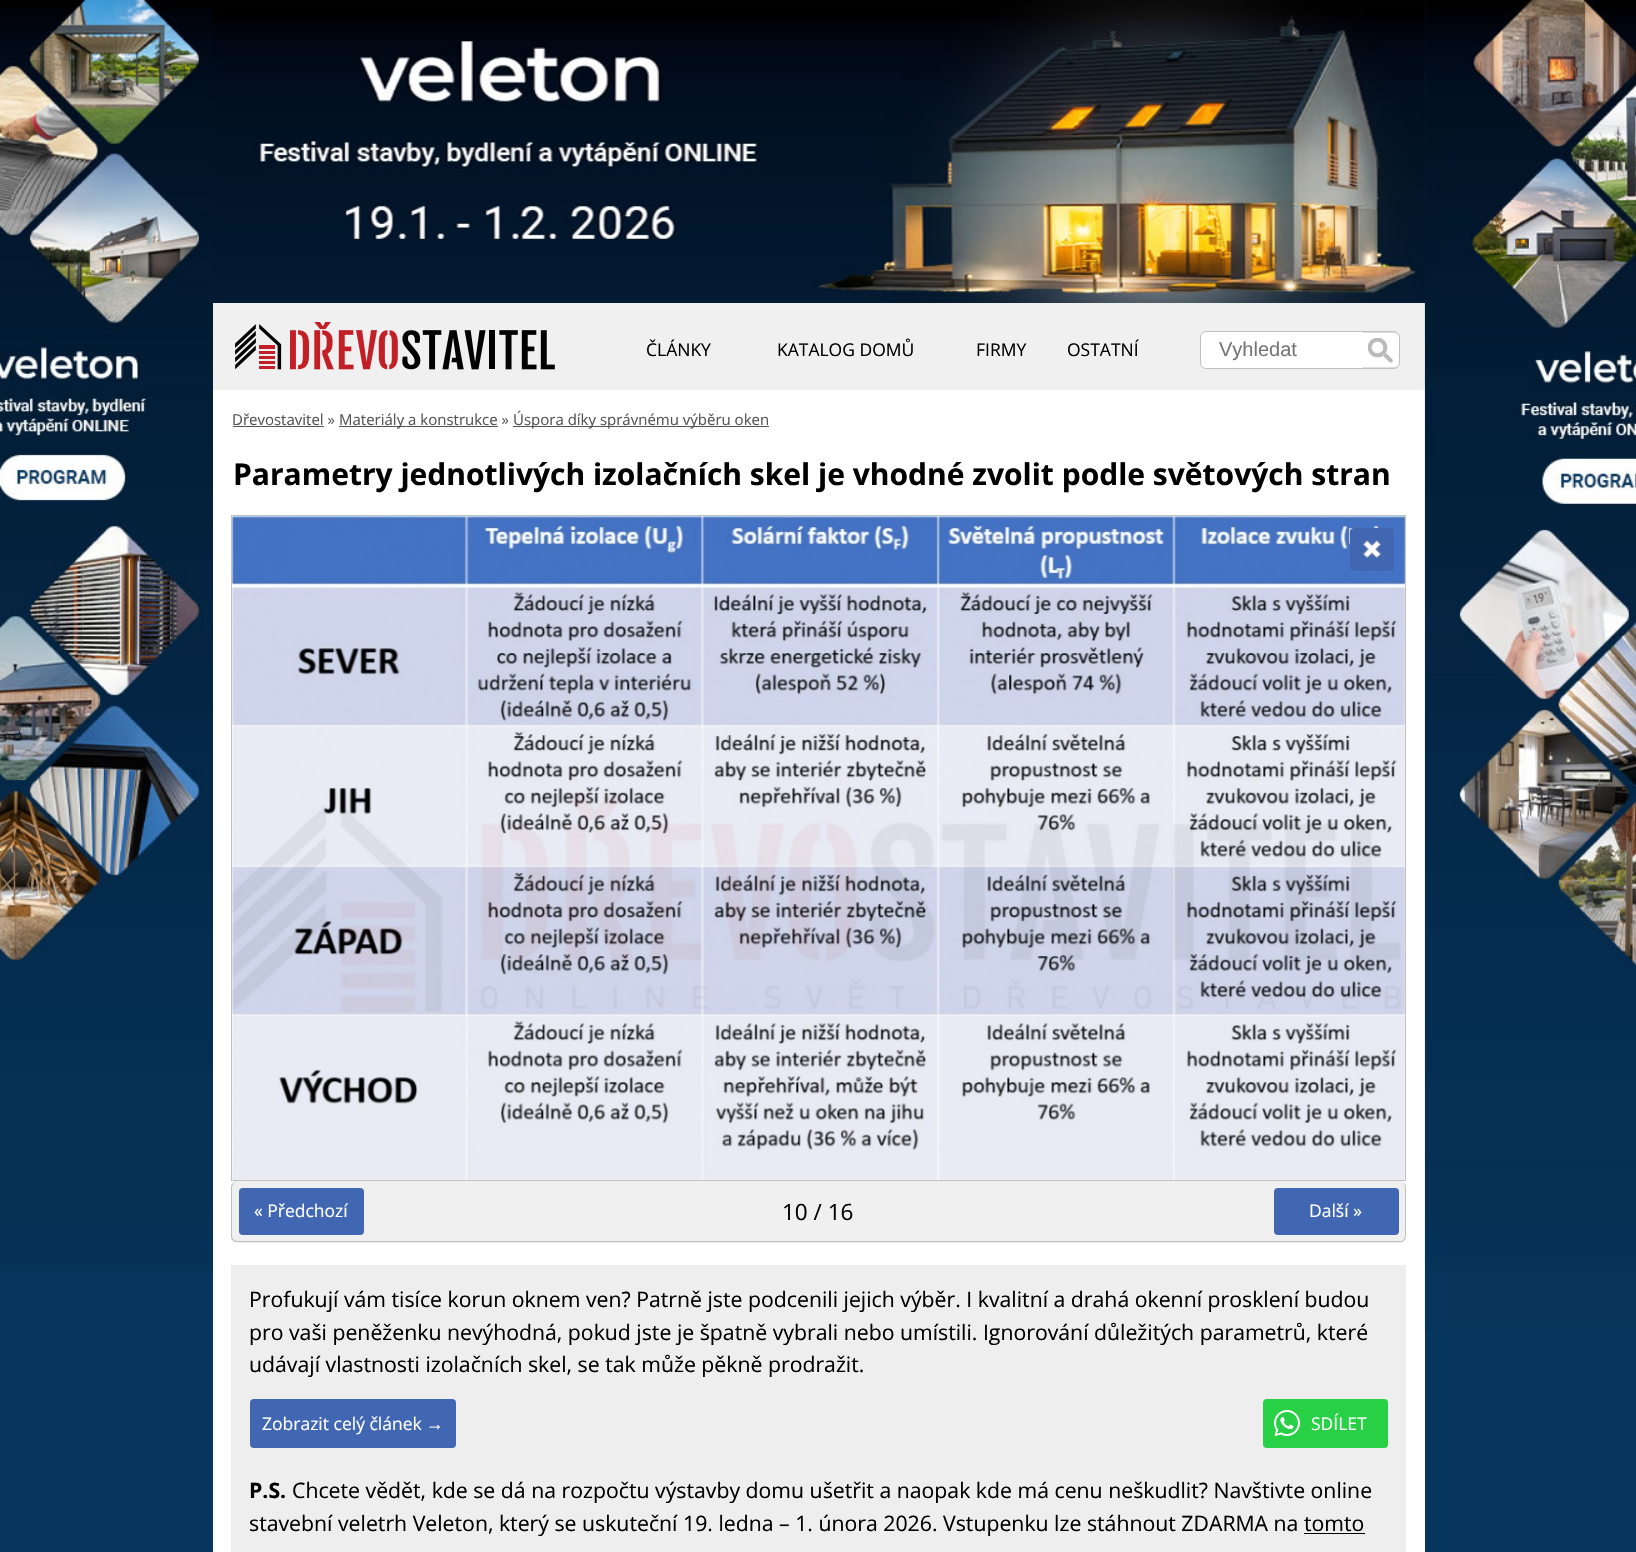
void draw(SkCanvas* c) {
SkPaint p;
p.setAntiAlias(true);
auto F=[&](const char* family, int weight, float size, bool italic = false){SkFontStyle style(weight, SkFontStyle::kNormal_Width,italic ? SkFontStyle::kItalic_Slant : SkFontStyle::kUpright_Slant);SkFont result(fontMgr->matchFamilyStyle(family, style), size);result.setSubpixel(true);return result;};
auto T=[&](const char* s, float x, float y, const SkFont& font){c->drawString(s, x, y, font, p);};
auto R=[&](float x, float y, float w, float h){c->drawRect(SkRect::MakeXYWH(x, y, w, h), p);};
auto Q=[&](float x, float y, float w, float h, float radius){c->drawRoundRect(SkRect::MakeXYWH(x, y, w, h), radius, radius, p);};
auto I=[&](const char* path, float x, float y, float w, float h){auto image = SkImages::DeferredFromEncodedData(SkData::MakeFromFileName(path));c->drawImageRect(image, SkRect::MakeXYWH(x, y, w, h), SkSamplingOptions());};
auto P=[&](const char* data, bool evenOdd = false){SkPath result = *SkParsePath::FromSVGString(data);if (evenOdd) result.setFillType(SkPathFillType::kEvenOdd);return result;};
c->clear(0xff06365e);
I("1.png",213,0,1212,303);
p.setColor(0xffffffff);
R(213,390,1212,1162);
I("2.png",0,0,213,1270);
p.setColor(0xfff0f0f0);
R(213,303,1212,87);
I("3.png",235,322,320,48);
auto f1 = F("Open Sans",400,17.5);
p.setColor(0xff000000);
T("ČLÁNKY",646,356,f1);
T("KATALOG DOMŮ",777,356,f1);
T("FIRMY",976,356,f1);
T("OSTATNÍ",1067,356,f1);
p.setColor(0xffffffff);
c->drawPath(P("M1206 331.5h159.5v37h-159.5c-3 0-5.5-2.5-5.5-5.5v-26c0-3 2.5-5.5 5.5-5.5z"),p);
p.setStroke(true);
p.setStrokeWidth(1);
p.setColor(0xffc0c0c0);
c->drawPath(P("M1206 331.5h159.5v37h-159.5c-3 0-5.5-2.5-5.5-5.5v-26c0-3 2.5-5.5 5.5-5.5z"),p);
auto f2 = F("Liberation Sans",400,20);
p.setStroke(false);
p.setColor(0xff757575);
T("Vyhledat",1219,356,f2);
p.setColor(0xffffffff);
c->drawPath(P("M1363 331h31c3.5 0 6 2.5 6 6v26c0 3.5-2.5 6-6 6h-31z"),p);
I("4.png",1368,338,25,25);
p.setColor(0xffc0c0c0);
c->drawPath(P("M1362.5 331h31.5c3 0 6 3 6 6.5v25c0 3.5-3 6.5-6 6.5h-31.5zm0 1.5h31.5c2.5 0 5 2 5 5v25c0 3-2.5 5-5 5h-31.5z",true),p);
I("5.png",1424,0,212,1330);
auto f3 = F("Open Sans",400,15);
p.setColor(0xff555555);
T("Dřevostavitel »",232,425,f3);
R(233,426,91,1);
R(339,426,159,1);
T("Materiály a konstrukce »",339,425,f3);
R(513,426,256,1);
T("Úspora díky správnému výběru oken",513,425,f3);
auto f4 = F("Open Sans",700,30);
p.setColor(0xff000000);
T("Parametry jednotlivých izolačních skel je vhodné zvolit podle světových stran",233,485,f4);
p.setStroke(true);
p.setColor(0xffc0c0c0);
c->drawRect(SkRect::MakeXYWH(231.5,515.5,1174,665),p);
I("6.png",232,516,1173,664);
p.setStroke(false);
p.setColor(0xff4267b2);
Q(1350,528,44,43,4);
I("7.png",1362,540,20,18);
p.setColor(0xfff0f0f0);
Q(231,1181,1175,62,6);
p.setColor(0xffc0c0c0);
c->drawPath(P("M238 1181h1162c3 0 6 3 6 7v48c0 4-3 6-6 6h-1162c-4 0-7-2-7-6v-48c0-4 3-7 7-7zm0 0h1162c3 0 5 3 5 7v48c0 3-2 5-5 5h-1162c-3 0-6-2-6-5v-48c0-4 3-7 6-7z",true),p);
p.setColor(0xff4267b2);
Q(239,1188,125,47,4);
p.setColor(0xffffffff);
T("« Předchozí",254,1217,f1);
auto f5 = F("Open Sans",400,22.5);
p.setColor(0xff000000);
T("10 / 16",782,1220,f5);
p.setColor(0xff4267b2);
Q(1274,1188,125,47,4);
p.setColor(0xffffffff);
T("Další »",1309,1217,f1);
p.setColor(0xffeeeeee);
R(231,1265,1175,287);
auto f6 = F("Open Sans",400,21.25);
p.setColor(0xff000000);
T("Profukují vám tisíce korun oknem ven? Patrně jste podcenili jejich výběr. I kvalitní a drahá okenní prosklení budou",249,1307,f6);
T("pro vaši peněženku nevýhodná, pokud jste je špatně vybrali nebo umístili. Ignorování důležitých parametrů, které",249,1340,f6);
T("udávají vlastnosti izolačních skel, se tak může pěkně prodražit.",249,1372,f6);
p.setColor(0xff4267b2);
Q(250,1399,206,49,4);
p.setColor(0xffffffff);
T("Zobrazit celý článek",262,1430,f1);
auto f7 = F("Liberation Sans",400,17.5);
T("→",426,1430,f7);
p.setColor(0xff27d045);
Q(1263,1399,125,49,4);
I("8.png",1274,1410,26,27);
p.setColor(0xffffffff);
T("SDÍLET",1311,1430,f1);
auto f8 = F("Open Sans",700,21.25);
p.setColor(0xff000000);
T("P.S.",249,1498,f8);
T("Chcete vědět, kde se dá na rozpočtu výstavby domu ušetřit a naopak kde má cenu neškudlit? Navštivte online",292,1498,f6);
T("stavební veletrh Veleton, který se uskuteční 19. ledna – 1. února 2026. Vstupenku lze stáhnout ZDARMA na tomto",249,1531,f6);
R(1304,1533,61,1);
}
